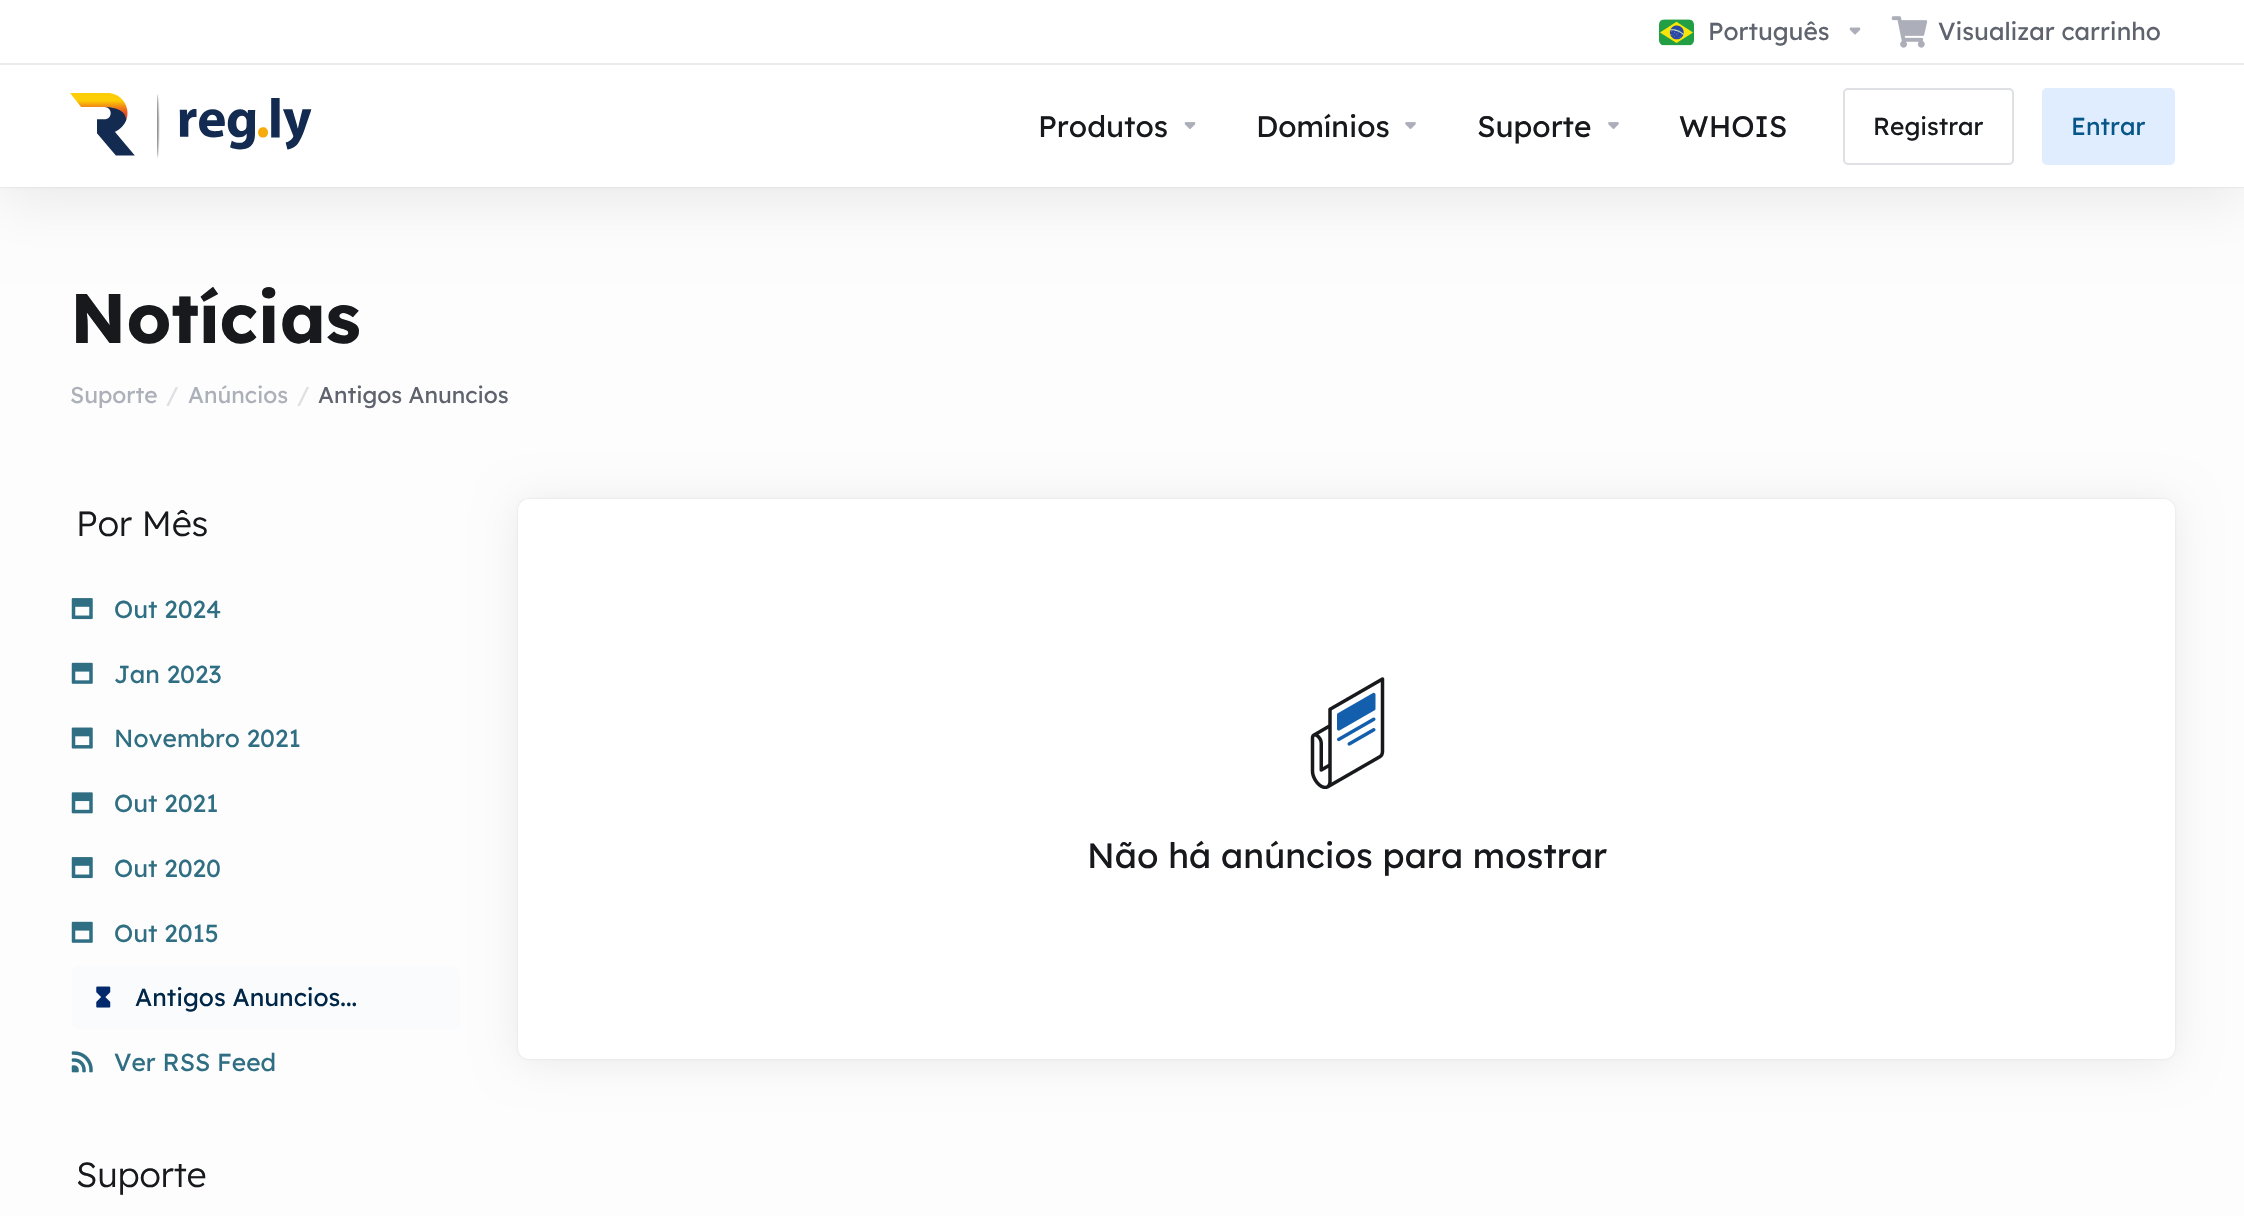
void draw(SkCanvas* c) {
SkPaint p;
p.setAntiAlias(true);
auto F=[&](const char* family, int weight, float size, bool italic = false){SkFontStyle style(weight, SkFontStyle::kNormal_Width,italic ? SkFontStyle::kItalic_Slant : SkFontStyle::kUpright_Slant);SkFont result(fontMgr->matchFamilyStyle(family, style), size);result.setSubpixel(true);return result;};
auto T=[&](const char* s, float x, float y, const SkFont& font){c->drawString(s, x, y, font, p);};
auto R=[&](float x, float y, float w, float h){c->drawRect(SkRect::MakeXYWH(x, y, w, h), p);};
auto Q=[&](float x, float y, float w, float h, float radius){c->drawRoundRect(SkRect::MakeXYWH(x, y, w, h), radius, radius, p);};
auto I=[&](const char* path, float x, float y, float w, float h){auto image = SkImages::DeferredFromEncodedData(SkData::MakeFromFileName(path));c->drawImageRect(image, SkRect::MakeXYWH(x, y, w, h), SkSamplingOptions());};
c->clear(0xfffdfdfd);
p.setColor(0x14000000);
p.setMaskFilter(SkMaskFilter::MakeBlur(kNormal_SkBlurStyle, 28));
c->drawRect(SkRect::MakeXYWH(0,14,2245,187),p);
p.setMaskFilter(nullptr);
p.setColor(0x1f000000);
p.setMaskFilter(SkMaskFilter::MakeBlur(kNormal_SkBlurStyle, 1));
c->drawRect(SkRect::MakeXYWH(0,0,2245,187),p);
p.setMaskFilter(nullptr);
p.setColor(0xffffffff);
R(0,0,2244,187);
p.setColor(0xffe9eaec);
R(0,63,2244,2);
I("1.png",1659,19,35,27);
auto f1 = F("Lexend Deca",400,24.5);
p.setColor(0xff5e636e);
T("Português",1708,40,f1);
I("2.png",1849,27,12,8);
I("3.png",1891,16,37,32);
T("Visualizar carrinho",1938,40,f1);
I("4.png",70,93,242,65);
auto f2 = F("Lexend Deca",400,29.75);
p.setColor(0xff17191c);
T("Produtos",1038,137,f2);
I("5.png",1184,122,12,7);
T("Domínios",1256,137,f2);
I("6.png",1405,122,11,7);
T("Suporte",1477,137,f2);
I("6.png",1608,122,11,7);
T("WHOIS",1679,137,f2);
p.setStroke(true);
p.setStrokeWidth(2);
p.setColor(0xffdee0e3);
c->drawRoundRect(SkRect::MakeXYWH(1844,89,169,75),4,4,p);
p.setStroke(false);
p.setColor(0xff17191c);
T("Registrar",1873,135,f1);
p.setColor(0xffdfedff);
c->drawRoundRect(SkRect::MakeXYWH(2043,89,131,75),4,4,p);
p.setStroke(true);
c->drawRoundRect(SkRect::MakeXYWH(2043,89,131,75),4,4,p);
p.setStroke(false);
p.setColor(0xff055789);
T("Entrar",2071,135,f1);
auto f3 = F("Lexend Deca",700,70);
p.setColor(0xff17191c);
T("Notícias",70,343,f3);
auto f4 = F("Lexend Deca",400,22.75);
p.setColor(0xffacb0b9);
T("Suporte",70,403,f4);
p.setColor(0xffdee0e3);
T("/",166,403,f4);
p.setColor(0xffacb0b9);
T("Anúncios",188,403,f4);
p.setColor(0xffdee0e3);
T("/",297,403,f4);
p.setColor(0xff5e636e);
T("Antigos Anuncios",318,403,f4);
auto f5 = F("Lexend Deca",300,35);
p.setColor(0xff17191c);
T("Por Mês",76,536,f5);
I("7.png",71,598,22,22);
p.setColor(0xff306f83);
T("Out 2024",114,618,f1);
I("8.png",71,662,22,22);
T("Jan 2023",114,683,f1);
I("9.png",71,727,22,22);
T("Novembro 2021",114,747,f1);
I("10.png",71,792,22,22);
T("Out 2021",114,812,f1);
I("7.png",71,857,22,22);
T("Out 2020",114,877,f1);
I("8.png",71,921,22,22);
T("Out 2015",114,942,f1);
p.setColor(0x14000000);
p.setMaskFilter(SkMaskFilter::MakeBlur(kNormal_SkBlurStyle, 21));
c->drawRoundRect(SkRect::MakeXYWH(518,502,1657,560),11,11,p);
p.setMaskFilter(nullptr);
p.setColor(0xfffafbfd);
Q(72,966,388,63,7);
I("11.png",96,986,15,22);
p.setColor(0xff002747);
T("Antigos Anuncios...",135,1006,f1);
I("12.png",71,1051,22,22);
p.setColor(0xff306f83);
T("Ver RSS Feed",114,1071,f1);
p.setColor(0xff17191c);
T("Suporte",76,1187,f5);
p.setColor(0x1a000000);
p.setMaskFilter(SkMaskFilter::MakeBlur(kNormal_SkBlurStyle, 1));
c->drawRoundRect(SkRect::MakeXYWH(518,499,1657,560),11,11,p);
p.setMaskFilter(nullptr);
p.setColor(0xffffffff);
Q(518,499,1657,560,11);
I("13.png",1310,677,75,112);
auto f6 = F("Lexend Deca",400,35);
p.setColor(0xff17191c);
T("Não há anúncios para mostrar",1087,868,f6);
}
